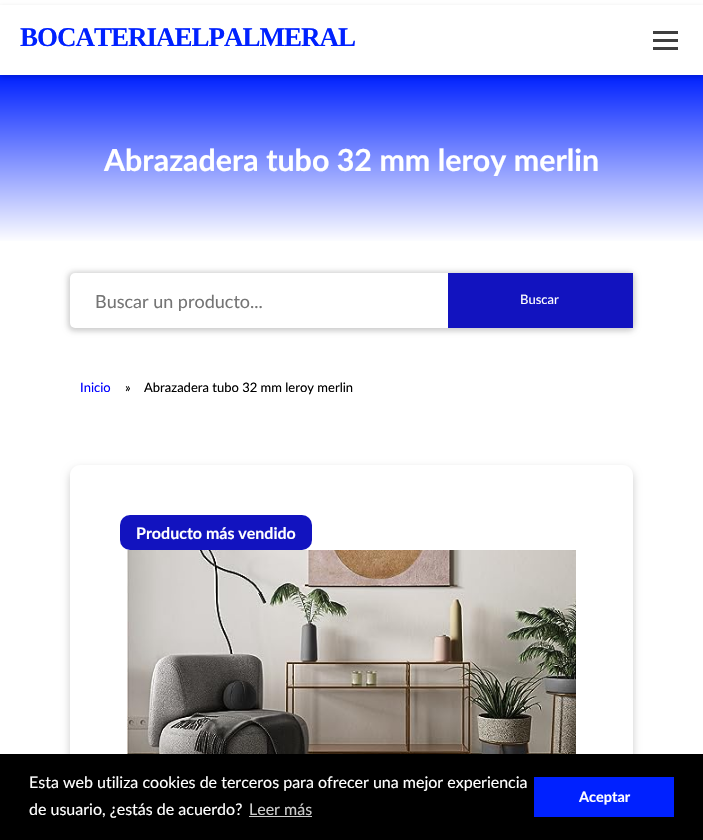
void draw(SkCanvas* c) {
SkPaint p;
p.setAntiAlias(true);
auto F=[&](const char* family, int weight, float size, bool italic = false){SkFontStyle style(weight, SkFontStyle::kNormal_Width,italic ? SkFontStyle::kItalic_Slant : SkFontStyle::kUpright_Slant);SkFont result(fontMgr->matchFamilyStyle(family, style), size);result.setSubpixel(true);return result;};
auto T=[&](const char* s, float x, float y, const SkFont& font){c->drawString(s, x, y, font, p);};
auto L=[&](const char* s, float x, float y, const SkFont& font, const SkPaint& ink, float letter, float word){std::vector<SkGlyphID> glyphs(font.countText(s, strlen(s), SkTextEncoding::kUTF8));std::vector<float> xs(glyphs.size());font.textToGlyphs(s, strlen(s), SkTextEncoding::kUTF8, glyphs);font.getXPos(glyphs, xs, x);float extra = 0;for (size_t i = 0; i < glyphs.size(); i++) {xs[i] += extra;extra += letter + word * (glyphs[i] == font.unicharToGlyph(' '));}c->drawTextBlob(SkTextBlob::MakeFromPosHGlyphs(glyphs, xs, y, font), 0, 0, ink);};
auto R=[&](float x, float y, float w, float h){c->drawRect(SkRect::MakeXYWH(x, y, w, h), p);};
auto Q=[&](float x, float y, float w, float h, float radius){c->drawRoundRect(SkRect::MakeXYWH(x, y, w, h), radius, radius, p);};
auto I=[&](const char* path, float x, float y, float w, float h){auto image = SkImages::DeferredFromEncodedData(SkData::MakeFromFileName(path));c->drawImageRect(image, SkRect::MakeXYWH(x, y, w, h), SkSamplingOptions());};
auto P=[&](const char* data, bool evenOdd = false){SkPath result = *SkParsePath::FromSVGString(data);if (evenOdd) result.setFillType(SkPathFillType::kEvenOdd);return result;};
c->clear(0xffffffff);
{
const SkColor colors[] = {0xff0021ff,0xffffffff};
const float stops[] = {0,1};
const SkPoint ends[] = {{352,75}, {352,243}};
p.setShader(SkGradientShader::MakeLinear(ends, colors, stops, 2, SkTileMode::kClamp));
p.setAlpha(255);
}
R(0,75,703,166);
c->save();
c->clipPath(P("M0 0h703v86h-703zm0 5h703v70h-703z",true),true);
p.setShader(nullptr);
p.setColor(0x29000000);
p.setMaskFilter(SkMaskFilter::MakeBlur(kNormal_SkBlurStyle, 2.5));
c->drawRect(SkRect::MakeXYWH(0,7,703,70),p);
p.setMaskFilter(nullptr);
c->restore();
auto f1 = F("Liberation Serif",700,27);
p.setColor(0xff0021ff);
L("BOCATERIAELPALMERAL",20,46,f1,p,-1,0);
p.setColor(0xff3f3f3f);
R(653,31,25,3);
R(653,39,25,3);
R(653,47,25,3);
auto f2 = F("Lato",700,30.4);
p.setColor(0xffffffff);
T("Abrazadera tubo 32 mm leroy merlin",104,171,f2);
p.setColor(0x1f000000);
p.setMaskFilter(SkMaskFilter::MakeBlur(kNormal_SkBlurStyle, 2.5));
c->drawRoundRect(SkRect::MakeXYWH(67,271,569,61),8,8,p);
p.setMaskFilter(nullptr);
p.setColor(0x1a000000);
p.setMaskFilter(SkMaskFilter::MakeBlur(kNormal_SkBlurStyle, 2.5));
c->drawRoundRect(SkRect::MakeXYWH(70,274,563,55),5,5,p);
p.setMaskFilter(nullptr);
p.setColor(0xffffffff);
Q(70,273,563,55,5);
auto f3 = F("Lato",400,18);
p.setColor(0xff757575);
T("Buscar un producto...",95,308,f3);
p.setColor(0xff1213bf);
R(448,273,185,55);
auto f4 = F("Lato",400,13);
p.setColor(0xffffffff);
T("Buscar",520,304,f4);
p.setColor(0xff0000ff);
T("Inicio",80,392,f4);
p.setColor(0xff000000);
T("»",125,392,f4);
T("Abrazadera tubo 32 mm leroy merlin",144,392,f4);
c->save();
c->clipPath(P("M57 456h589v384h-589zm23 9h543c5.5 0 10 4.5 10 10v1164c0 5.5-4.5 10-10 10h-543c-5.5 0-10-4.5-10-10v-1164c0-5.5 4.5-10 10-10z",true),true);
p.setColor(0x33000000);
p.setMaskFilter(SkMaskFilter::MakeBlur(kNormal_SkBlurStyle, 4));
c->drawRoundRect(SkRect::MakeXYWH(70,469,563,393),10,10,p);
p.setMaskFilter(nullptr);
c->restore();
p.setColor(0xff1213bf);
Q(120,515,192,35,10);
auto f5 = F("Lato",700,16);
p.setColor(0xffffffff);
T("Producto más vendido",136,539,f5);
I("1.png",127,550,449,204);
p.setColor(0xff000000);
R(0,754,703,86);
auto f6 = F("Lato",400,16);
p.setColor(0xffffffff);
T("Esta web utiliza cookies de terceros para ofrecer una mejor experiencia",29,788,f6);
T("de usuario, ¿estás de acuerdo?",29,815,f6);
p.setColor(0xffcccccc);
T("Leer más",249,815,f6);
R(249,816,63,1);
p.setColor(0xff0021ff);
R(534,777,140,40);
auto f7 = F("Lato",700,14.5);
p.setColor(0xffffffff);
T("Aceptar",579,802,f7);
}
